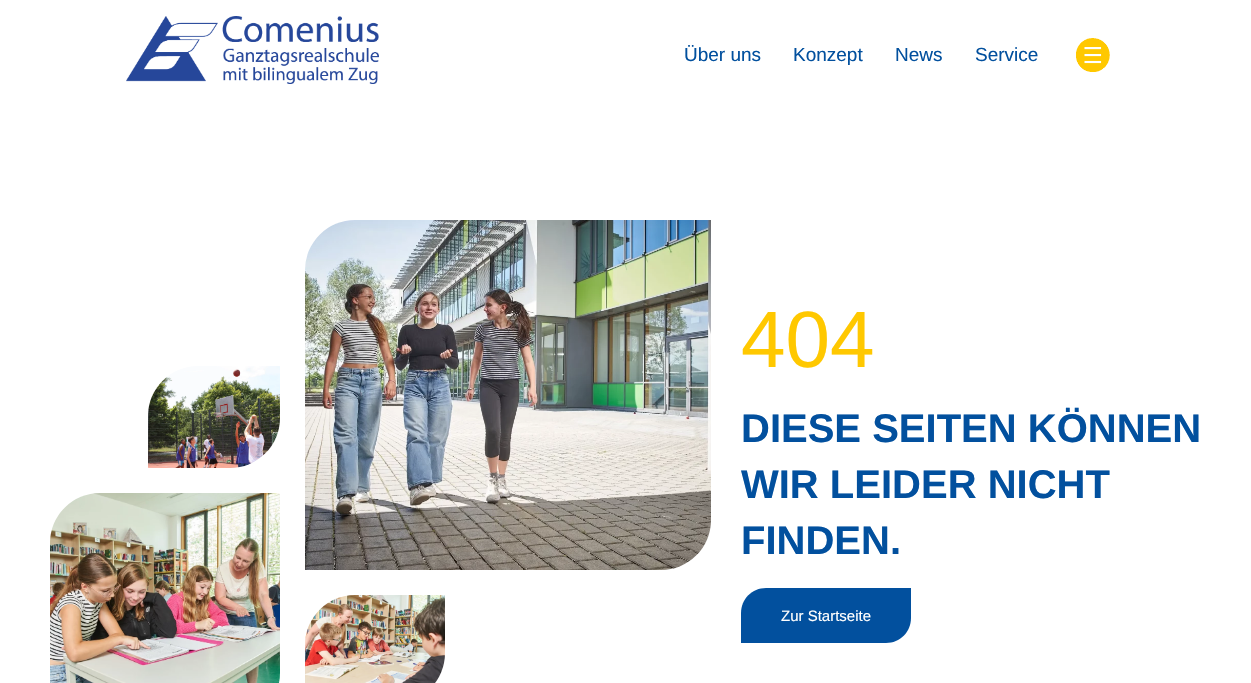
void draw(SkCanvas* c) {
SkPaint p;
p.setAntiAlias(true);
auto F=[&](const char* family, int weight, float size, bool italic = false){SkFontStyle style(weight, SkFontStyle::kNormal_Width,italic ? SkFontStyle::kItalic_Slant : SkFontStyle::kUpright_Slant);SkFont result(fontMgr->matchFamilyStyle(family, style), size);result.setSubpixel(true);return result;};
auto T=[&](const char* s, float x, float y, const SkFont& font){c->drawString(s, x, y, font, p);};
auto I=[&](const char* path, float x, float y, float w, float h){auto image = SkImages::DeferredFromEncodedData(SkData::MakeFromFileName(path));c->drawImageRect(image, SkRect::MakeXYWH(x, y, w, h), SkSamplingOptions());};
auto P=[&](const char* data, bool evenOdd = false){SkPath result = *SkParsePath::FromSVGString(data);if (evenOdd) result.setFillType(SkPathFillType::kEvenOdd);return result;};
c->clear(0xffffffff);
I("1.png",126,16,253,68);
auto f1 = F("Liberation Sans",400,19);
p.setColor(0xff02509e);
T("Über uns",684,61,f1);
T("Konzept",793,61,f1);
T("News",895,61,f1);
T("Service",975,61,f1);
I("2.png",1076,38,34,34);
I("3.png",148,366,132,102);
I("4.png",50,493,230,190);
I("5.png",305,220,406,350);
I("6.png",305,595,140,88);
auto f2 = F("Liberation Sans",400,80);
p.setColor(0xffffc800);
T("404",741,367,f2);
auto f3 = F("Liberation Sans",700,40);
p.setColor(0xff02509e);
T("DIESE SEITEN KÖNNEN",741,442,f3);
T("WIR LEIDER NICHT",741,498,f3);
T("FINDEN.",741,554,f3);
c->drawPath(P("M766 588h145v30c0 14-11 25-25 25h-145v-30c0-14 11-25 25-25z"),p);
auto f4 = F("Liberation Sans",400,15);
p.setColor(0xffffffff);
T("Zur Startseite",781,621,f4);
}
